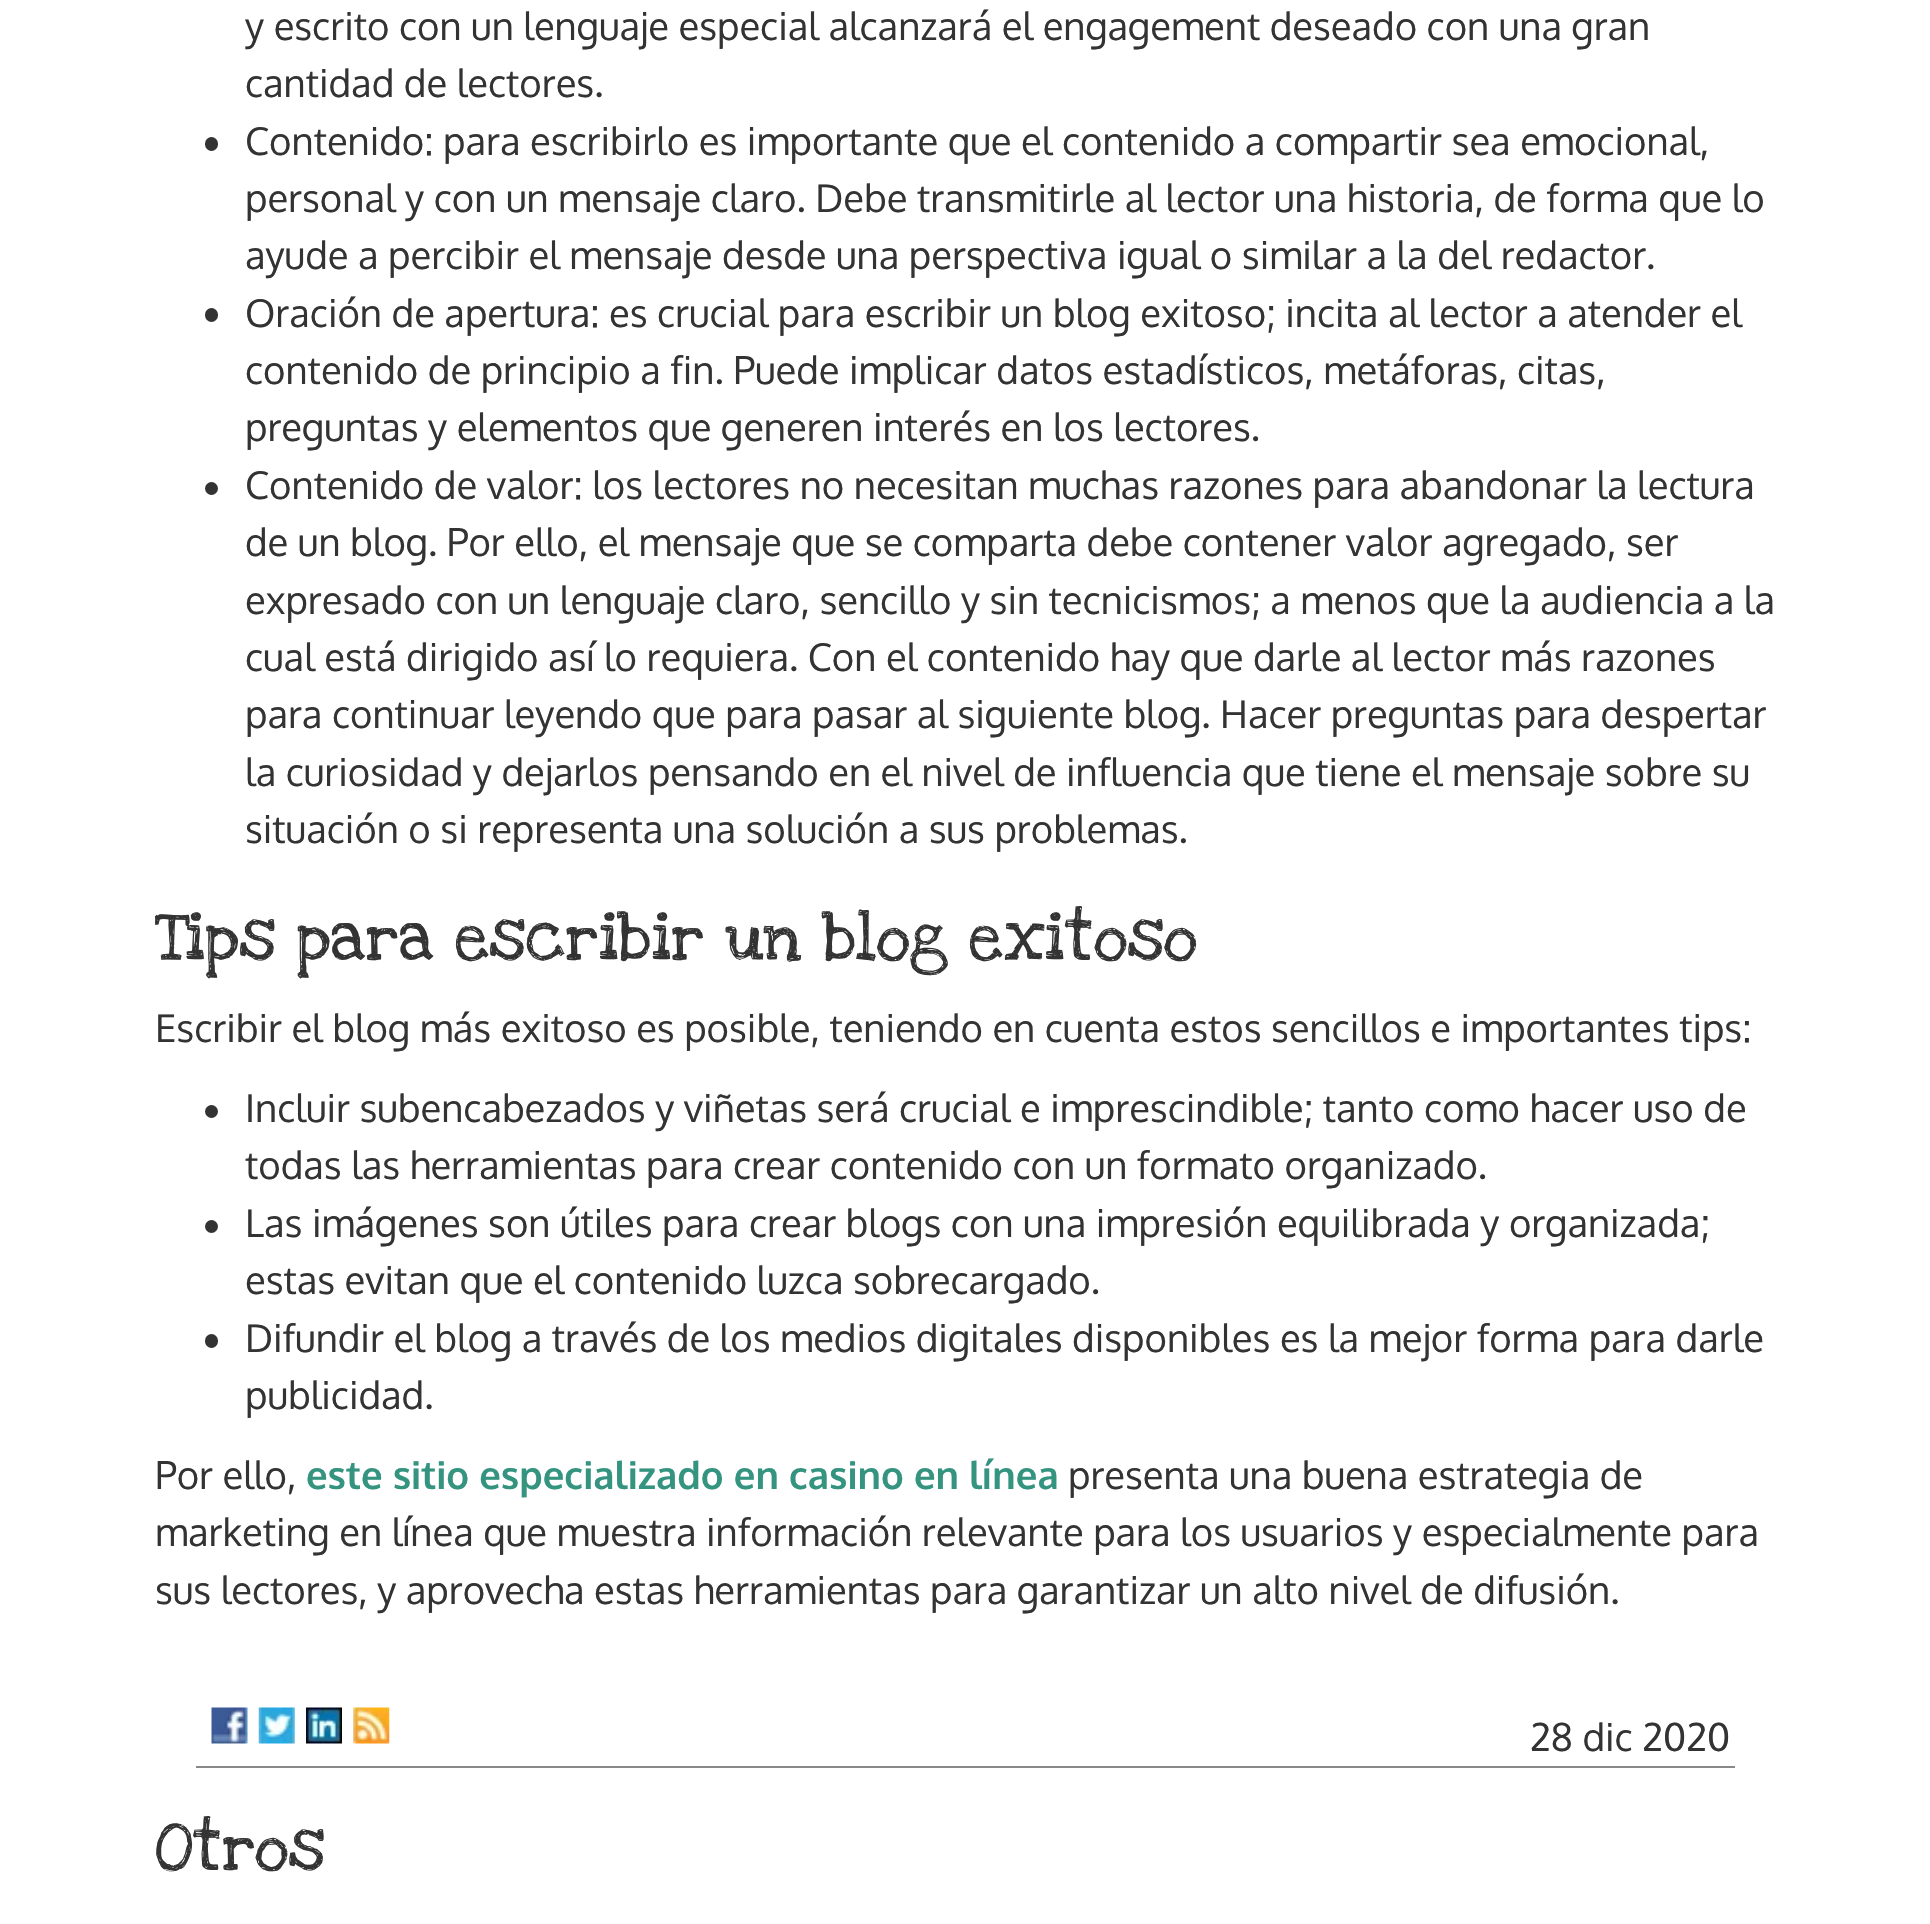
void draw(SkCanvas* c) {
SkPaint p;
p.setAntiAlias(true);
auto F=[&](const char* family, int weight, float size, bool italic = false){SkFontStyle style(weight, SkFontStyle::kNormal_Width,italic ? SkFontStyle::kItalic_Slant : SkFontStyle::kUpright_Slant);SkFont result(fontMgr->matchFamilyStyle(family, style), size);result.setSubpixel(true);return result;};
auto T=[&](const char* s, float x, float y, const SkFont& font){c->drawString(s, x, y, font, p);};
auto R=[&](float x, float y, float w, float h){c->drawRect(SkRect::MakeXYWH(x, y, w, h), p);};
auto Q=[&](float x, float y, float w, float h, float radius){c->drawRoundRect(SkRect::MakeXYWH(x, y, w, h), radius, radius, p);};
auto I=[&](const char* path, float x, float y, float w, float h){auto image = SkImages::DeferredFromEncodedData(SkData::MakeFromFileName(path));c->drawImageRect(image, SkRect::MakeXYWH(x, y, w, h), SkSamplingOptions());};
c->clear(0xffffffff);
auto f1 = F("Oxygen",400,38.25);
p.setColor(0xff333333);
T("y escrito con un lenguaje especial alcanzará el engagement deseado con una gran",245,40,f1);
T("cantidad de lectores.",245,97,f1);
Q(205,137,13,14,6.5);
T("Contenido: para escribirlo es importante que el contenido a compartir sea emocional,",245,155,f1);
T("personal y con un mensaje claro. Debe transmitirle al lector una historia, de forma que lo",245,212,f1);
T("ayude a percibir el mensaje desde una perspectiva igual o similar a la del redactor.",245,269,f1);
Q(205,308,13,14,6.5);
T("Oración de apertura: es crucial para escribir un blog exitoso; incita al lector a atender el",245,327,f1);
T("contenido de principio a fin. Puede implicar datos estadísticos, metáforas, citas,",245,384,f1);
T("preguntas y elementos que generen interés en los lectores.",245,441,f1);
c->drawCircle(211.5,488.5,6.5,p);
T("Contenido de valor: los lectores no necesitan muchas razones para abandonar la lectura",245,499,f1);
T("de un blog. Por ello, el mensaje que se comparta debe contener valor agregado, ser",245,556,f1);
T("expresado con un lenguaje claro, sencillo y sin tecnicismos; a menos que la audiencia a la",245,614,f1);
T("cual está dirigido así lo requiera. Con el contenido hay que darle al lector más razones",245,671,f1);
T("para continuar leyendo que para pasar al siguiente blog. Hacer preguntas para despertar",245,728,f1);
T("la curiosidad y dejarlos pensando en el nivel de influencia que tiene el mensaje sobre su",245,786,f1);
T("situación o si representa una solución a sus problemas.",245,843,f1);
auto f2 = F("Love Ya Like A Sister",400,67.5);
T("Tips para escribir un blog exitoso",155,959,f2);
T("Escribir el blog más exitoso es posible, teniendo en cuenta estos sencillos e importantes tips:",155,1042,f1);
c->drawCircle(211.5,1111.5,6.5,p);
T("Incluir subencabezados y viñetas será crucial e imprescindible; tanto como hacer uso de",245,1122,f1);
T("todas las herramientas para crear contenido con un formato organizado.",245,1179,f1);
c->drawCircle(211.5,1226.5,6.5,p);
T("Las imágenes son útiles para crear blogs con una impresión equilibrada y organizada;",245,1237,f1);
T("estas evitan que el contenido luzca sobrecargado.",245,1294,f1);
Q(205,1334,13,14,6.5);
T("Difundir el blog a través de los medios digitales disponibles es la mejor forma para darle",245,1352,f1);
T("publicidad.",245,1409,f1);
T("Por ello,",155,1489,f1);
auto f3 = F("Oxygen",700,38.25);
p.setColor(0xff359480);
T("este sitio especializado en casino en línea",306,1489,f3);
p.setColor(0xff333333);
T("presenta una buena estrategia de",1068,1489,f1);
T("marketing en línea que muestra información relevante para los usuarios y especialmente para",155,1546,f1);
T("sus lectores, y aprovecha estas herramientas para garantizar un alto nivel de difusión.",155,1604,f1);
I("1.png",211,1707,37,37);
I("2.png",258,1707,37,37);
I("3.png",306,1707,36,37);
I("4.png",353,1707,37,37);
T("28 dic 2020",1530,1751,f1);
p.setColor(0xff888888);
R(196,1766,1539,2);
p.setColor(0xff333333);
T("Otros",155,1869,f2);
}
